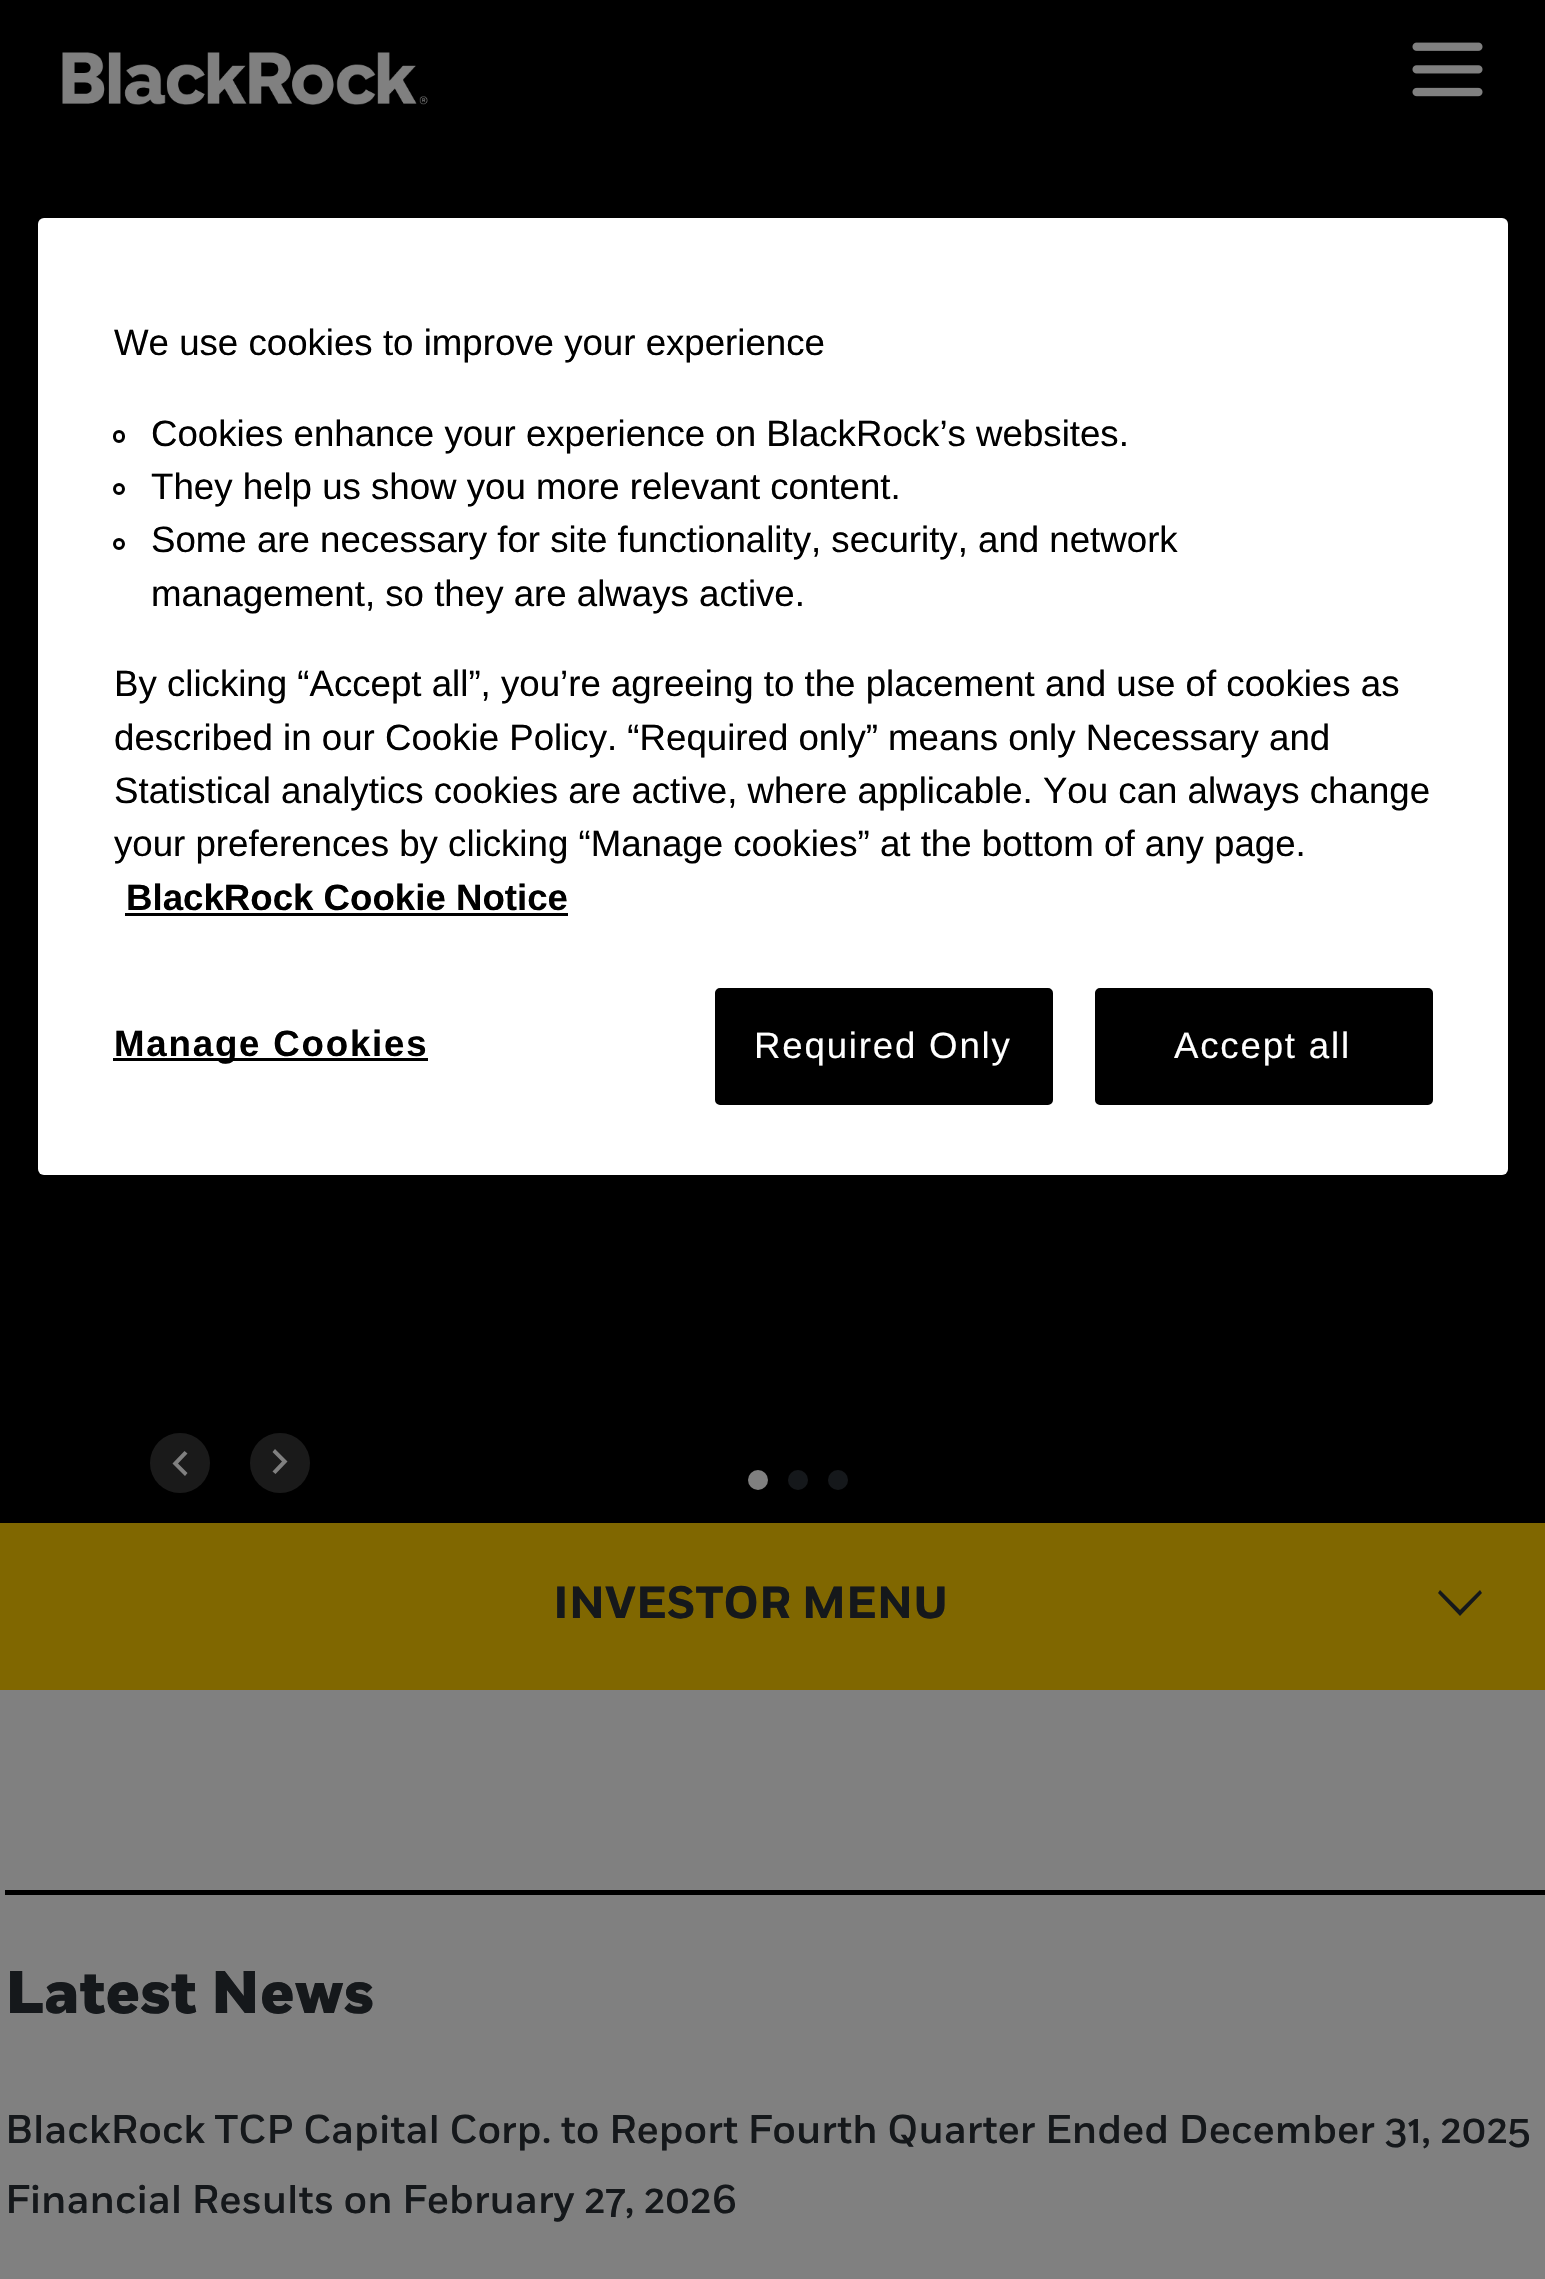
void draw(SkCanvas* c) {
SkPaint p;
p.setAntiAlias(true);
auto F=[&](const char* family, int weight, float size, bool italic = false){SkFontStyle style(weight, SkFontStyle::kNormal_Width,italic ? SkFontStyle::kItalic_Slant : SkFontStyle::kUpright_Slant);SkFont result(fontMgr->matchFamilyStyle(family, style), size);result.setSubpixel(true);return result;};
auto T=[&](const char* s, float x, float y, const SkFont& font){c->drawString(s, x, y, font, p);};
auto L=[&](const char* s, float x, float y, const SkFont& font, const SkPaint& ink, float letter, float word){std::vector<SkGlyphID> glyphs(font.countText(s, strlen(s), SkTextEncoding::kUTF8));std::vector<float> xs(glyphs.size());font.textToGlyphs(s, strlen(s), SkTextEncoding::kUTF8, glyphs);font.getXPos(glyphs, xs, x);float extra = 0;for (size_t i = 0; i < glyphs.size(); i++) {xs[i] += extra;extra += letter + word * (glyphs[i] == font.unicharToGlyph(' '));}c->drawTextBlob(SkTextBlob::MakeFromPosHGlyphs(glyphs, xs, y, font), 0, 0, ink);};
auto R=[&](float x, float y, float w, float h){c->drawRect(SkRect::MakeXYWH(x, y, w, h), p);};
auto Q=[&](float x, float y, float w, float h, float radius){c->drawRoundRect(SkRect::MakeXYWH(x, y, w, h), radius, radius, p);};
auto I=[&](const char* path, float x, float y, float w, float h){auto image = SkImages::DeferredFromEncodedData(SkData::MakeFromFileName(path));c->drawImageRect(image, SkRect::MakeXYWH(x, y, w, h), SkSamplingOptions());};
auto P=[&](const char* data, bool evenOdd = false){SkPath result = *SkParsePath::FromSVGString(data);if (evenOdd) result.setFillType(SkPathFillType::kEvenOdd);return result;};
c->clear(0xff808080);
p.setColor(0xff000000);
R(0,0,1545,1523);
p.setColor(0xffffffff);
Q(38,218,1470,957,6);
auto f1 = F("Liberation Sans",400,36.65);
p.setColor(0xff000000);
T("We use cookies to improve your experience",114,355,f1);
p.setStroke(true);
p.setStrokeWidth(3);
c->drawRoundRect(SkRect::MakeXYWH(114.5,431.5,9,10),4.5,4.5,p);
p.setStroke(false);
T("Cookies enhance your experience on BlackRock’s websites.",151,446,f1);
p.setStroke(true);
c->drawCircle(119,489,4.5,p);
p.setStroke(false);
T("They help us show you more relevant content.",151,499,f1);
p.setStroke(true);
c->drawCircle(119,544,4.5,p);
p.setStroke(false);
T("Some are necessary for site functionality, security, and network",151,552,f1);
T("management, so they are always active.",151,606,f1);
T("By clicking “Accept all”, you’re agreeing to the placement and use of cookies as",114,696,f1);
T("described in our Cookie Policy. “Required only” means only Necessary and",114,750,f1);
T("Statistical analytics cookies are active, where applicable. You can always change",114,803,f1);
T("your preferences by clicking “Manage cookies” at the bottom of any page.",114,856,f1);
auto f2 = F("Liberation Sans",700,36.65);
T("BlackRock Cookie Notice",126,910,f2);
R(125,913,443,3);
R(113,1058,315,3);
L("Manage Cookies",114,1056,f2,p,1.8,0);
c->drawRoundRect(SkRect::MakeXYWH(716.5,989.5,335,114),3.5,3.5,p);
p.setStroke(true);
c->drawRoundRect(SkRect::MakeXYWH(716.5,989.5,335,114),3.5,3.5,p);
p.setStroke(false);
p.setColor(0xffffffff);
L("Required Only",754,1058,f1,p,1.8,0);
p.setColor(0xff000000);
c->drawRoundRect(SkRect::MakeXYWH(1096.5,989.5,335,114),3.5,3.5,p);
p.setStroke(true);
c->drawRoundRect(SkRect::MakeXYWH(1096.5,989.5,335,114),3.5,3.5,p);
p.setStroke(false);
p.setColor(0xffffffff);
L("Accept all",1174,1058,f1,p,1.8,0);
p.setColor(0xff1a1a1a);
c->drawCircle(180,1463,30,p);
p.setColor(0xff808080);
c->drawPath(P("M184.5 1451l3 2.5l-9.5 10l9.5 9.5l-2.5 3l-12.5-12.5z"),p);
p.setColor(0xff1a1a1a);
c->drawCircle(280,1463,30,p);
p.setColor(0xff808080);
c->drawPath(P("M275.5 1474l-3-2.5l9.5-10l-9.5-9.5l2.5-3l12.5 12.5z"),p);
c->drawCircle(758,1480,10,p);
p.setColor(0xff15181b);
c->drawCircle(798,1480,10,p);
c->drawCircle(838,1480,10,p);
I("1.png",62,52,366,53);
I("2.png",1412,42,71,55);
p.setColor(0xff806700);
R(0,1523,1545,167);
auto f3 = F("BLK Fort",700,45);
p.setColor(0xff15181b);
T("INVESTOR MENU",553,1618,f3);
c->drawPath(P("M1482 1593l-2-3l-20 20l-20-20l-2 3l22 23z"),p);
p.setColor(0xff000000);
R(5,1890,1540,5);
auto f4 = F("BLK Fort",800,60);
p.setColor(0xff15181b);
T("Latest News",5,2013,f4);
auto f5 = F("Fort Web",500,40);
T("BlackRock TCP Capital Corp. to Report Fourth Quarter Ended December 31, 2025",5,2143,f5);
T("Financial Results on February 27, 2026",5,2213,f5);
}
